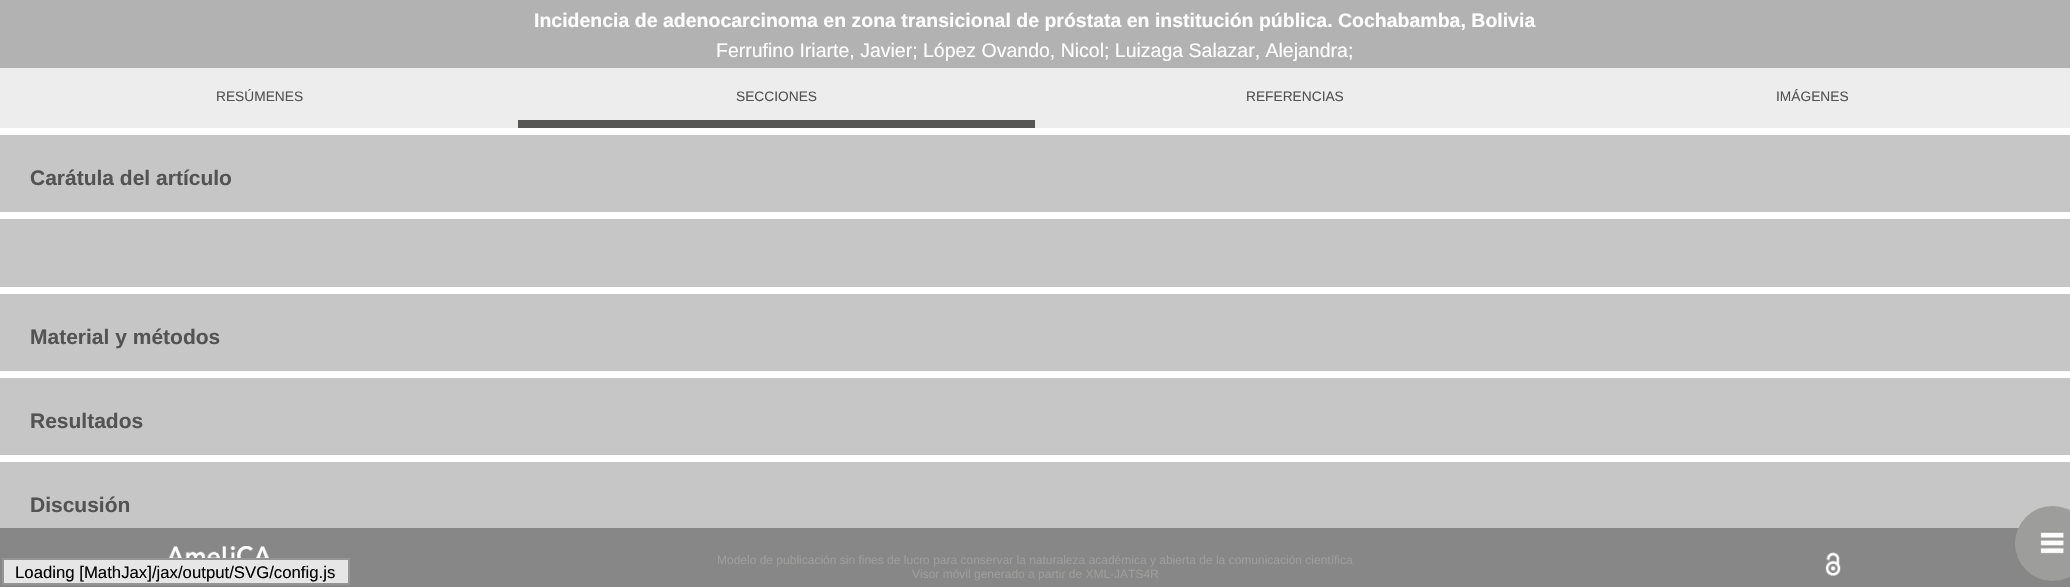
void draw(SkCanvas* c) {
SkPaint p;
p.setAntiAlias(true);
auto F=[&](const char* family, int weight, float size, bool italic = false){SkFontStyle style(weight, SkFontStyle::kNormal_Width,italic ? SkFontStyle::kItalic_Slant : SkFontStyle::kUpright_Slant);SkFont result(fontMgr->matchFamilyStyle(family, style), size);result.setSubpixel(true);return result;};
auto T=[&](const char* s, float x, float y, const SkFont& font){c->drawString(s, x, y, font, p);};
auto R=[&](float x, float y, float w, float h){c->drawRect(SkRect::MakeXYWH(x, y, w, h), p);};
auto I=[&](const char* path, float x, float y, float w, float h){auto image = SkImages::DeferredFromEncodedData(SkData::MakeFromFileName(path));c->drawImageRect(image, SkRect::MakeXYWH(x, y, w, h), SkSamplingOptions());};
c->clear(0xffffffff);
p.setColor(0xffb2b2b2);
R(0,0,2070,68);
auto f1 = F("Liberation Sans",700,19.5);
p.setColor(0xffffffff);
T("Incidencia de adenocarcinoma en zona transicional de próstata en institución pública. Cochabamba, Bolivia",534,27,f1);
auto f2 = F("Liberation Sans",400,19.5);
T("Ferrufino Iriarte, Javier; López Ovando, Nicol; Luizaga Salazar, Alejandra;",716,57,f2);
p.setColor(0xffc6c6c6);
R(0,462,2070,66);
p.setColor(0xff878787);
R(0,528,2070,59);
p.setColor(0xff9d9d9c);
c->drawCircle(2052.5,543.5,37.5,p);
I("1.png",2040,531,24,23);
p.setColor(0xffededed);
R(0,68,2070,60);
auto f3 = F("Liberation Sans",400,13.75);
p.setColor(0xff545353);
T("RESÚMENES",216,101,f3);
T("SECCIONES",736,101,f3);
T("REFERENCIAS",1246,101,f3);
T("IMÁGENES",1776,101,f3);
p.setColor(0xff575756);
R(518,120,517,8);
p.setColor(0xffc6c6c6);
R(0,135,2070,77);
auto f4 = F("Liberation Sans",700,21);
p.setColor(0xff545353);
T("Carátula del artículo",30,185,f4);
p.setColor(0xffc6c6c6);
R(0,219,2070,68);
R(0,294,2070,77);
p.setColor(0xff545353);
T("Material y métodos",30,344,f4);
p.setColor(0xffc6c6c6);
R(0,378,2070,77);
p.setColor(0xff545353);
T("Resultados",30,428,f4);
T("Discusión",30,512,f4);
p.setColor(0xffe6e6e6);
c->drawRect(SkRect::MakeXYWH(3,559,346,25),p);
p.setStroke(true);
p.setStrokeWidth(2);
p.setColor(0xff959595);
c->drawRect(SkRect::MakeXYWH(3,559,346,25),p);
auto f5 = F("Liberation Sans",400,16.75);
p.setStroke(false);
p.setColor(0xff000000);
T("Loading [MathJax]/jax/output/SVG/config.js",15,578,f5);
I("2.png",168,546,102,12);
auto f6 = F("Liberation Sans",400,12);
p.setColor(0xff9d9d9c);
T("Modelo de publicación sin fines de lucro para conservar la naturaleza académica y abierta de la comunicación científica",717,564,f6);
T("Visor móvil generado a partir de XML-JATS4R",912,578,f6);
I("3.png",1825,552,16,24);
}
